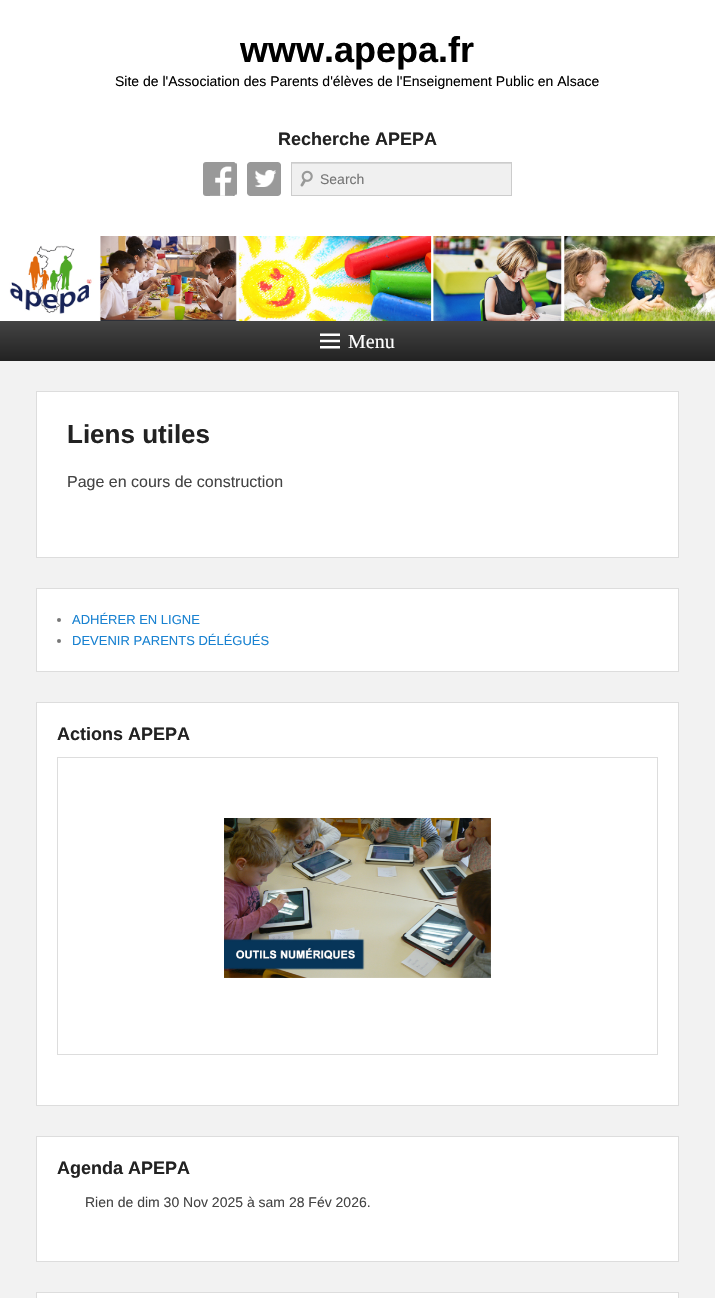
void draw(SkCanvas* c) {
SkPaint p;
p.setAntiAlias(true);
auto F=[&](const char* family, int weight, float size, bool italic = false){SkFontStyle style(weight, SkFontStyle::kNormal_Width,italic ? SkFontStyle::kItalic_Slant : SkFontStyle::kUpright_Slant);SkFont result(fontMgr->matchFamilyStyle(family, style), size);result.setSubpixel(true);return result;};
auto T=[&](const char* s, float x, float y, const SkFont& font){c->drawString(s, x, y, font, p);};
auto R=[&](float x, float y, float w, float h){c->drawRect(SkRect::MakeXYWH(x, y, w, h), p);};
auto I=[&](const char* path, float x, float y, float w, float h){auto image = SkImages::DeferredFromEncodedData(SkData::MakeFromFileName(path));c->drawImageRect(image, SkRect::MakeXYWH(x, y, w, h), SkSamplingOptions());};
c->clear(0xfff2f2f2);
p.setColor(0xffffffff);
R(0,0,715,321);
auto f1 = F("Liberation Sans",700,36);
p.setColor(0xff000000);
T("www.apepa.fr",240,62,f1);
auto f2 = F("Liberation Sans",400,14);
T("Site de l'Association des Parents d'élèves de l'Enseignement Public en Alsace",115,86,f2);
auto f3 = F("Liberation Sans",700,18);
p.setColor(0xff222222);
T("Recherche APEPA",278,145,f3);
I("1.png",203,162,34,34);
I("2.png",247,162,34,34);
p.setColor(0xfff0f0f0);
R(292,164,219,31);
I("3.png",300,170,13,17);
p.setColor(0xffd8d8d8);
R(292,163,219,1);
p.setStroke(true);
p.setStrokeWidth(1);
p.setColor(0xffcccccc);
c->drawRect(SkRect::MakeXYWH(291.5,162.5,220,33),p);
p.setStroke(false);
p.setColor(0xff757575);
T("Search",320,184,f2);
I("4.png",9,236,706,85);
{
const SkColor colors[] = {0xff444444,0xff222222};
const float stops[] = {0,1};
const SkPoint ends[] = {{358,321}, {358,361}};
p.setShader(SkGradientShader::MakeLinear(ends, colors, stops, 2, SkTileMode::kClamp));
p.setAlpha(255);
}
R(0,321,715,40);
I("5.png",320,333,20,16);
auto f4 = F("Liberation Serif",400,20);
p.setShader(nullptr);
p.setColor(0xffffffff);
T("Menu",348,348,f4);
c->drawRect(SkRect::MakeXYWH(36.5,391.5,642,166),p);
p.setStroke(true);
p.setColor(0xffdddddd);
c->drawRect(SkRect::MakeXYWH(36.5,391.5,642,166),p);
auto f5 = F("Liberation Sans",700,26);
p.setStroke(false);
p.setColor(0xff222222);
T("Liens utiles",67,443,f5);
auto f6 = F("Liberation Sans",400,16);
p.setColor(0xff444444);
T("Page en cours de construction",67,487,f6);
p.setColor(0xffffffff);
c->drawRect(SkRect::MakeXYWH(36.5,588.5,642,83),p);
p.setStroke(true);
p.setColor(0xffdddddd);
c->drawRect(SkRect::MakeXYWH(36.5,588.5,642,83),p);
p.setStroke(false);
p.setColor(0xff777777);
c->drawCircle(59,620,2,p);
auto f7 = F("Liberation Sans",400,13);
p.setColor(0xff1982d1);
T("ADHÉRER EN LIGNE",72,624,f7);
p.setColor(0xff777777);
c->drawCircle(59,641,2,p);
p.setColor(0xff1982d1);
T("DEVENIR PARENTS DÉLÉGUÉS",72,645,f7);
p.setColor(0xffffffff);
c->drawRect(SkRect::MakeXYWH(36.5,702.5,642,403),p);
p.setStroke(true);
p.setColor(0xffdddddd);
c->drawRect(SkRect::MakeXYWH(36.5,702.5,642,403),p);
p.setStroke(false);
p.setColor(0xff222222);
T("Actions APEPA",57,740,f3);
p.setStroke(true);
p.setColor(0xffdddddd);
c->drawRect(SkRect::MakeXYWH(57.5,757.5,600,297),p);
I("6.png",224,818,267,160);
p.setStroke(false);
p.setColor(0xffffffff);
c->drawRect(SkRect::MakeXYWH(36.5,1136.5,642,125),p);
p.setStroke(true);
p.setColor(0xffdddddd);
c->drawRect(SkRect::MakeXYWH(36.5,1136.5,642,125),p);
p.setStroke(false);
p.setColor(0xff222222);
T("Agenda APEPA",57,1174,f3);
p.setColor(0xff444444);
T("Rien de dim 30 Nov 2025 à sam 28 Fév 2026.",85,1207,f2);
p.setColor(0xffffffff);
c->drawRect(SkRect::MakeXYWH(36.5,1292.5,642,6),p);
p.setStroke(true);
p.setColor(0xffdddddd);
c->drawRect(SkRect::MakeXYWH(36.5,1292.5,642,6),p);
}
